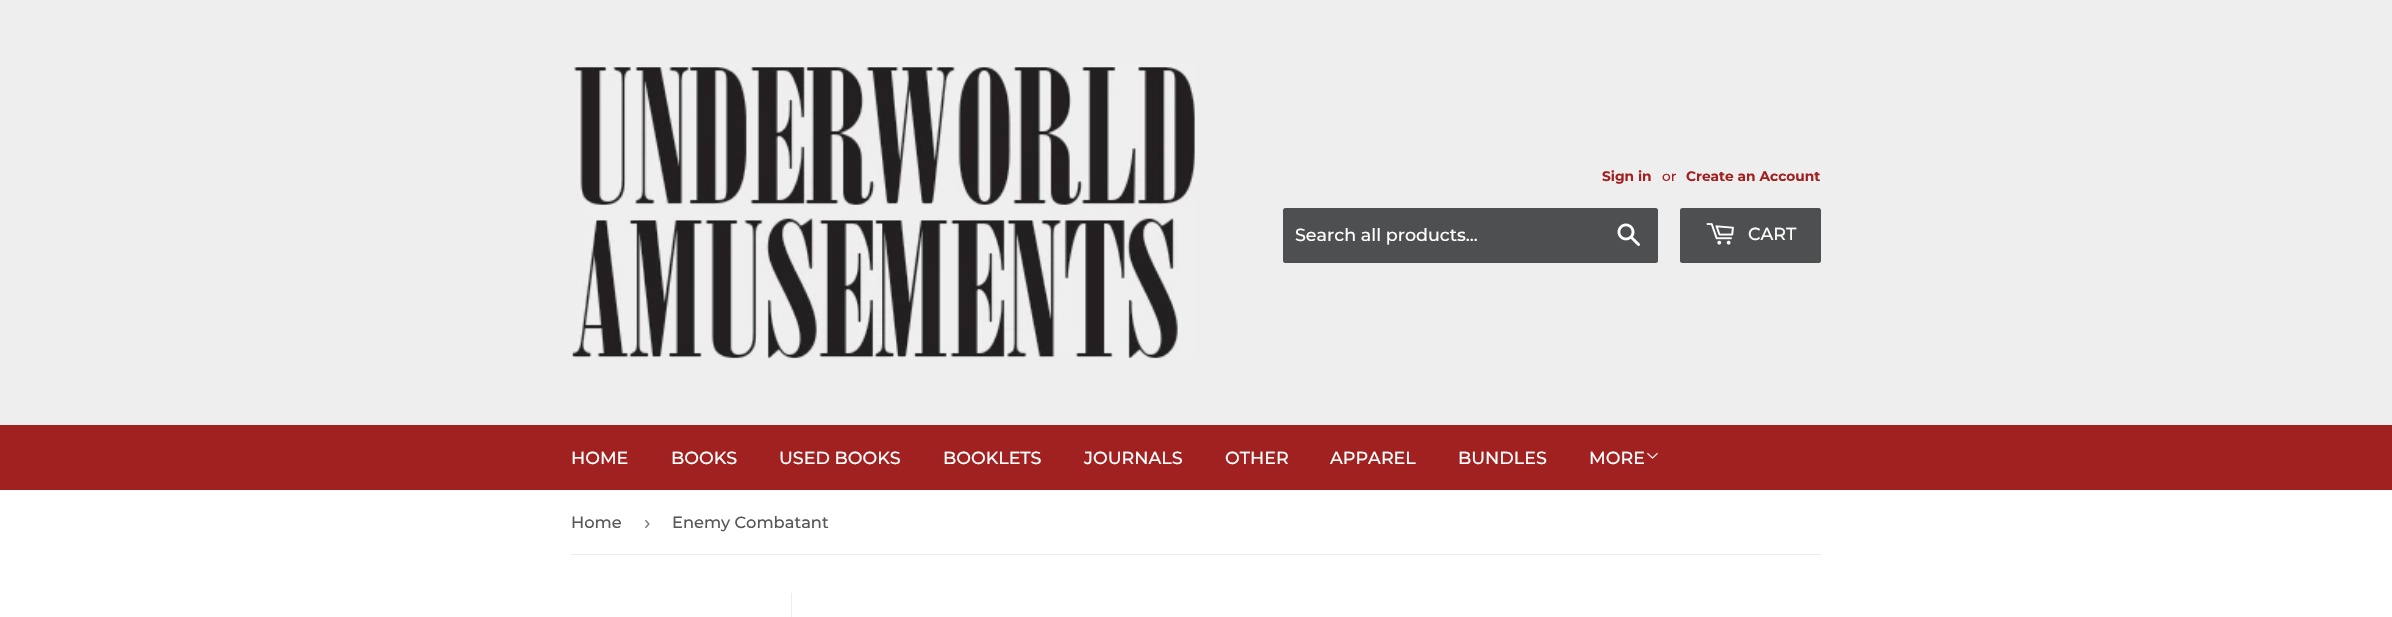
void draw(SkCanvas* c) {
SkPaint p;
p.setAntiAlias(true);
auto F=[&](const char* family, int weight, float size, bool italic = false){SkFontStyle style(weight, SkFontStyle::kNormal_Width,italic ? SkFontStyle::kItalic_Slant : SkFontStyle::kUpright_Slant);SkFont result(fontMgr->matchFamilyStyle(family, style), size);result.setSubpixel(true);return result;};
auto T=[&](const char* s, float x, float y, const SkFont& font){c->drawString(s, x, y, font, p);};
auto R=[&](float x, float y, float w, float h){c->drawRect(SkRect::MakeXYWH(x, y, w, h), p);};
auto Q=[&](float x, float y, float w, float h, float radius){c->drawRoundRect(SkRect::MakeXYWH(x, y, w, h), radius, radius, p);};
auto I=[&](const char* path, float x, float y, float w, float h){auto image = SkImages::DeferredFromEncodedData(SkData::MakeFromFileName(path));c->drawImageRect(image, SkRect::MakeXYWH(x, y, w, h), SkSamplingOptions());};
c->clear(0xffffffff);
p.setColor(0xffeeeeee);
R(0,0,2392,425);
I("1.png",572,63,624,296);
auto f1 = F("Montserrat",700,13.75);
p.setColor(0xffa12121);
T("Sign in",1602,181,f1);
auto f2 = F("Montserrat",500,13.75);
T("or",1662,181,f2);
T("Create an Account",1686,181,f1);
p.setColor(0xff4e4f51);
Q(1283,208,375,55,2.5);
auto f3 = F("Montserrat",500,17.5);
p.setColor(0xffffffff);
T("Search all products...",1295,241,f3);
I("2.png",1617,223,23,23);
p.setColor(0xff4e4f51);
Q(1680,208,141,55,2.5);
I("3.png",1706,223,28,22);
p.setColor(0xffffffff);
T("CART",1748,240,f3);
p.setColor(0xffa12121);
R(0,425,2392,65);
p.setColor(0xffffffff);
T("HOME",571,464,f3);
T("BOOKS",671,464,f3);
T("USED BOOKS",779,464,f3);
T("BOOKLETS",943,464,f3);
T("JOURNALS",1084,464,f3);
T("OTHER",1225,464,f3);
T("APPAREL",1330,464,f3);
T("BUNDLES",1458,464,f3);
T("MORE",1589,464,f3);
I("4.png",1647,452,11,7);
p.setColor(0xffececec);
R(571,554,1250,1);
auto f4 = F("Montserrat",500,16.25);
p.setColor(0xff585858);
T("Home",571,528,f4);
auto f5 = F("Liberation Sans",400,19);
p.setColor(0xff767676);
T("›",644,529,f5);
p.setColor(0xff585858);
T("Enemy Combatant",672,528,f4);
p.setColor(0xffececec);
R(791,593,1,24);
}
